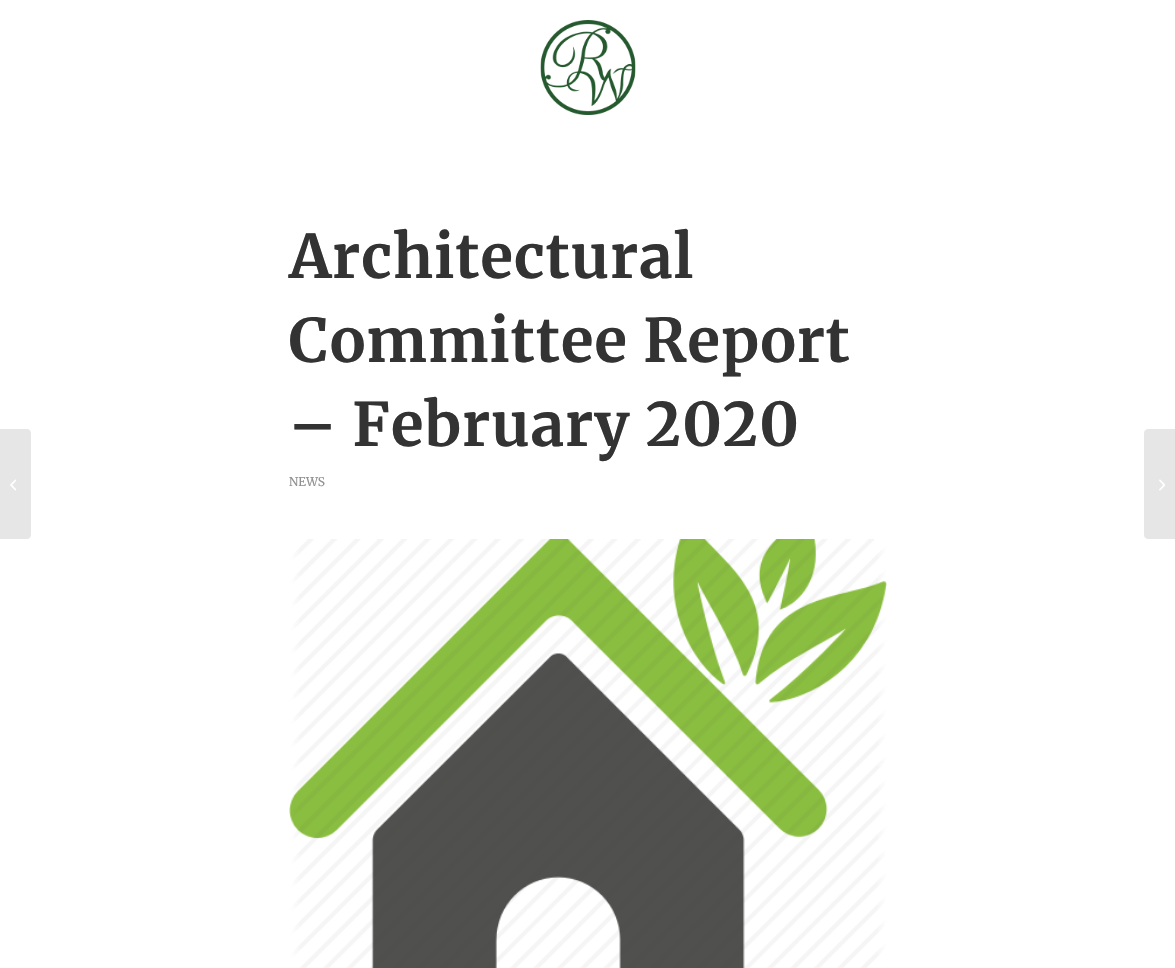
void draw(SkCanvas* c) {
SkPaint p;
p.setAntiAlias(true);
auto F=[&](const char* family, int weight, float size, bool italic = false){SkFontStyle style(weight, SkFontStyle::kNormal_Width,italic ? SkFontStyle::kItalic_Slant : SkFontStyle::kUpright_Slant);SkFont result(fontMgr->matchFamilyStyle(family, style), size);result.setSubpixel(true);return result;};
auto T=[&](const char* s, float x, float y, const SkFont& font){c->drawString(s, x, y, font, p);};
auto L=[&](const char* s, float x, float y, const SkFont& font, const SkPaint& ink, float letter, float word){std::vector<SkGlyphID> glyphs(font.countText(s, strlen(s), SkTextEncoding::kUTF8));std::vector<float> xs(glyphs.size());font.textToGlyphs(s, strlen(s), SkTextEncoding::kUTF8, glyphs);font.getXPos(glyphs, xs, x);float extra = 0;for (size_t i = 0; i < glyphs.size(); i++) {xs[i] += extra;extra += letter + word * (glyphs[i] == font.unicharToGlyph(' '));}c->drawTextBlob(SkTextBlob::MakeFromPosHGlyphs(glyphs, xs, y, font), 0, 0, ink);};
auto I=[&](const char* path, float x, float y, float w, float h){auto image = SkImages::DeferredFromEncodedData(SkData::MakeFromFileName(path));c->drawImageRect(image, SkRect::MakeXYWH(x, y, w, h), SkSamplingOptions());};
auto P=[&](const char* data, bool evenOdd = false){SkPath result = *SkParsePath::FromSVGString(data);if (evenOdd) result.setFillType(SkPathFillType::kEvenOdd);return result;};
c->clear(0xffffffff);
I("1.png",540,20,96,95);
p.setColor(0xffe6e6e6);
c->drawPath(P("M0 429h27c2 0 4 2 4 4v102c0 2-2 4-4 4h-27z"),p);
I("2.png",10,479,6,12);
auto f1 = F("Merriweather",700,60);
p.setColor(0xff333333);
L("Architectural",289,278,f1,p,1,0);
L("Committee Report",289,362,f1,p,1,0);
L("– February 2020",289,446,f1,p,1,0);
auto f2 = F("Merriweather",400,12);
p.setColor(0xff919191);
T("NEWS",289,486,f2);
I("3.png",289,539,598,429);
p.setColor(0xffe6e6e6);
c->drawPath(P("M1148 429h27v110h-27c-2 0-4-2-4-4v-102c0-2 2-4 4-4z"),p);
I("4.png",1159,479,6,12);
}
